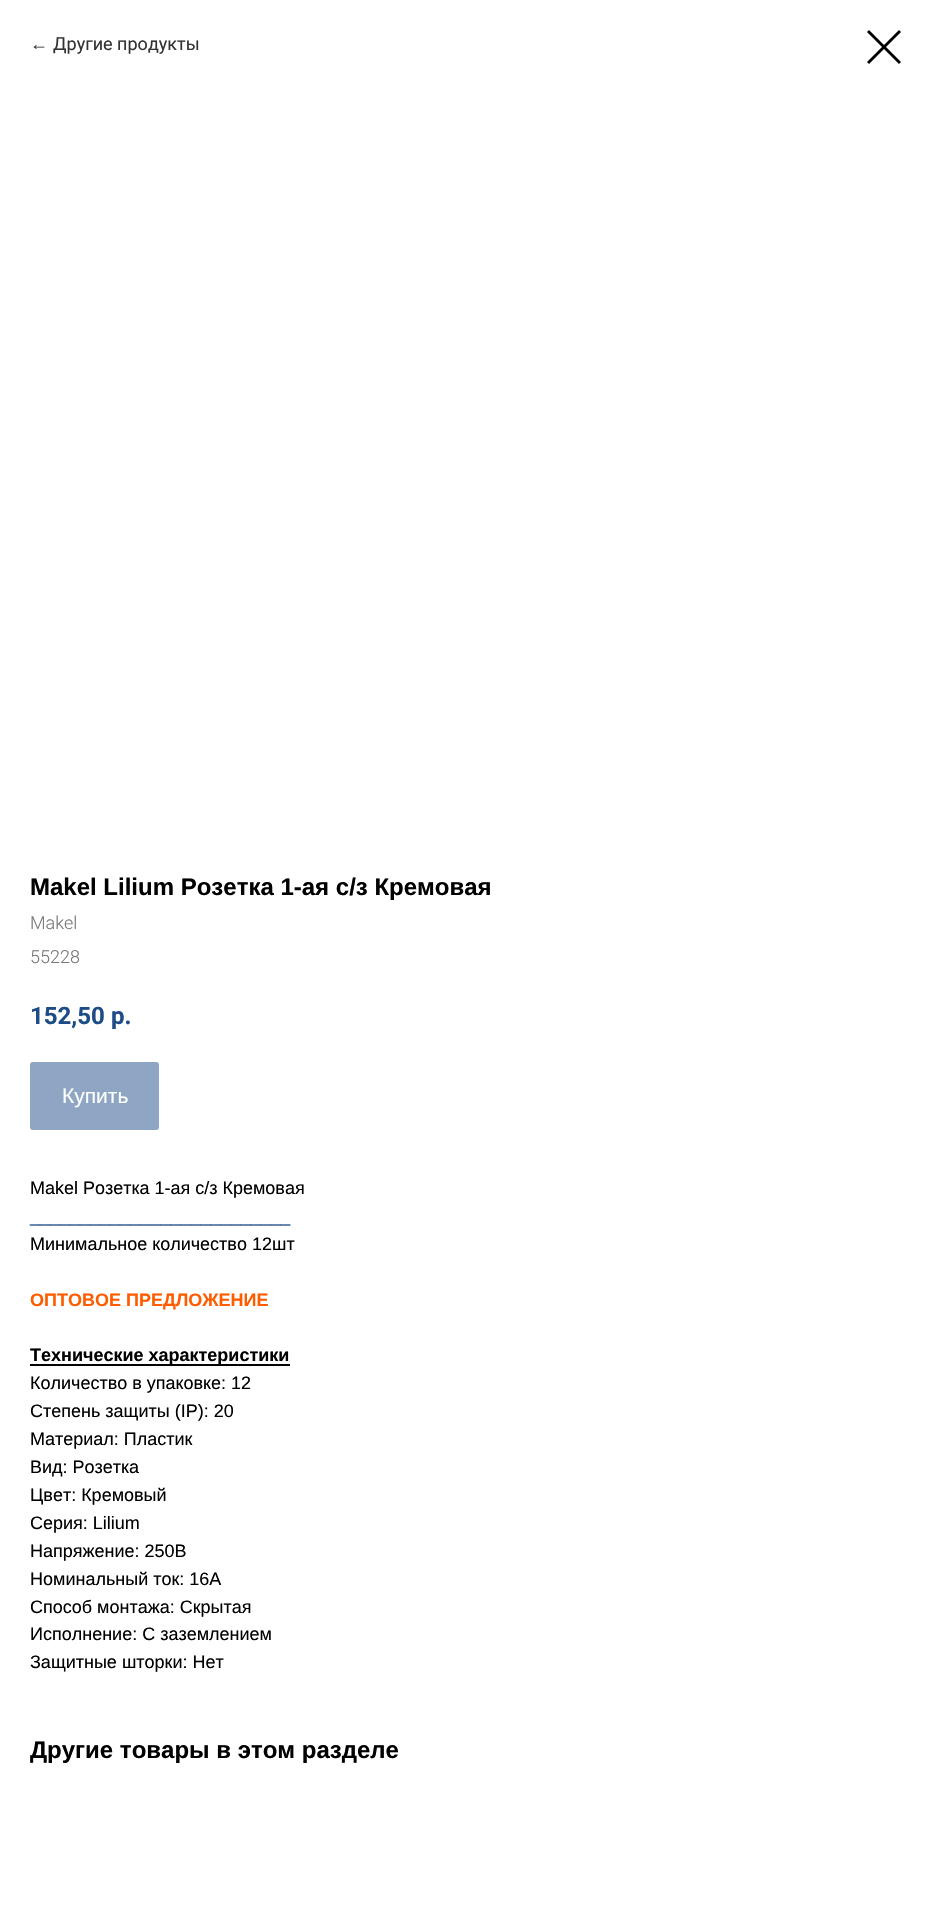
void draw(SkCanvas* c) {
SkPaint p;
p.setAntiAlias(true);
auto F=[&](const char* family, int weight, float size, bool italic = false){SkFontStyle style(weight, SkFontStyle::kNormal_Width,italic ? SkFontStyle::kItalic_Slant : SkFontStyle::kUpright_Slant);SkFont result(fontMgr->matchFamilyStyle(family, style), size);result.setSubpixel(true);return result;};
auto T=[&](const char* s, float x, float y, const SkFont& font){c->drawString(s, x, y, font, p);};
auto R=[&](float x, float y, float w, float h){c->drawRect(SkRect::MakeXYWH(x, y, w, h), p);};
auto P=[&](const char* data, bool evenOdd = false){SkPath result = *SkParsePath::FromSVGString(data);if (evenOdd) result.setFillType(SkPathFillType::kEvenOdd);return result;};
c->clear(0xffffffff);
auto f1 = F("Liberation Sans",400,18);
p.setColor(0xff333333);
T("←",30,50,f1);
auto f2 = F("Roboto",400,18);
T("Другие продукты",53,50,f2);
p.setColor(0xff000000);
c->drawPath(P("M867 32l2-2l32 32l-2 2z",true),p);
c->drawPath(P("M899 30l2 2l-32 32l-2-2z",true),p);
auto f3 = F("Liberation Sans",700,24);
T("Makel Lilium Розетка 1-ая с/з Кремовая",30,895,f3);
auto f4 = F("Roboto",300,18);
p.setColor(0xff777777);
T("Makel",30,929,f4);
T("55228",30,963,f4);
auto f5 = F("Roboto",700,24);
p.setColor(0xff1d4c87);
T("152,50",30,1024,f5);
T("р.",111,1024,f5);
p.setColor(0xff8ea6c3);
c->drawRoundRect(SkRect::MakeXYWH(31,1063,127,66),2,2,p);
p.setStroke(true);
p.setStrokeWidth(2);
c->drawRoundRect(SkRect::MakeXYWH(31,1063,127,66),2,2,p);
auto f6 = F("Liberation Sans",400,21);
p.setStroke(false);
p.setColor(0xffffffff);
T("Купить",62,1103,f6);
p.setColor(0xff000000);
T("Makel Розетка 1-ая с/з Кремовая",30,1194,f1);
p.setColor(0xff1d4c87);
T("__________________________",30,1222,f1);
p.setColor(0xff000000);
T("Минимальное количество 12шт",30,1250,f1);
auto f7 = F("Liberation Sans",700,18);
p.setColor(0xffff5c00);
T("ОПТОВОЕ ПРЕДЛОЖЕНИЕ",30,1306,f7);
p.setColor(0xff000000);
R(30,1364,260,2);
T("Технические характеристики",30,1361,f7);
T("Количество в упаковке: 12",30,1389,f1);
T("Степень защиты (IP): 20",30,1417,f1);
T("Материал: Пластик",30,1445,f1);
T("Вид: Розетка",30,1473,f1);
T("Цвет: Кремовый",30,1501,f1);
T("Серия: Lilium",30,1529,f1);
T("Напряжение: 250В",30,1557,f1);
T("Номинальный ток: 16А",30,1585,f1);
T("Способ монтажа: Скрытая",30,1613,f1);
T("Исполнение: С заземлением",30,1640,f1);
T("Защитные шторки: Нет",30,1668,f1);
T("Другие товары в этом разделе",30,1758,f3);
}
